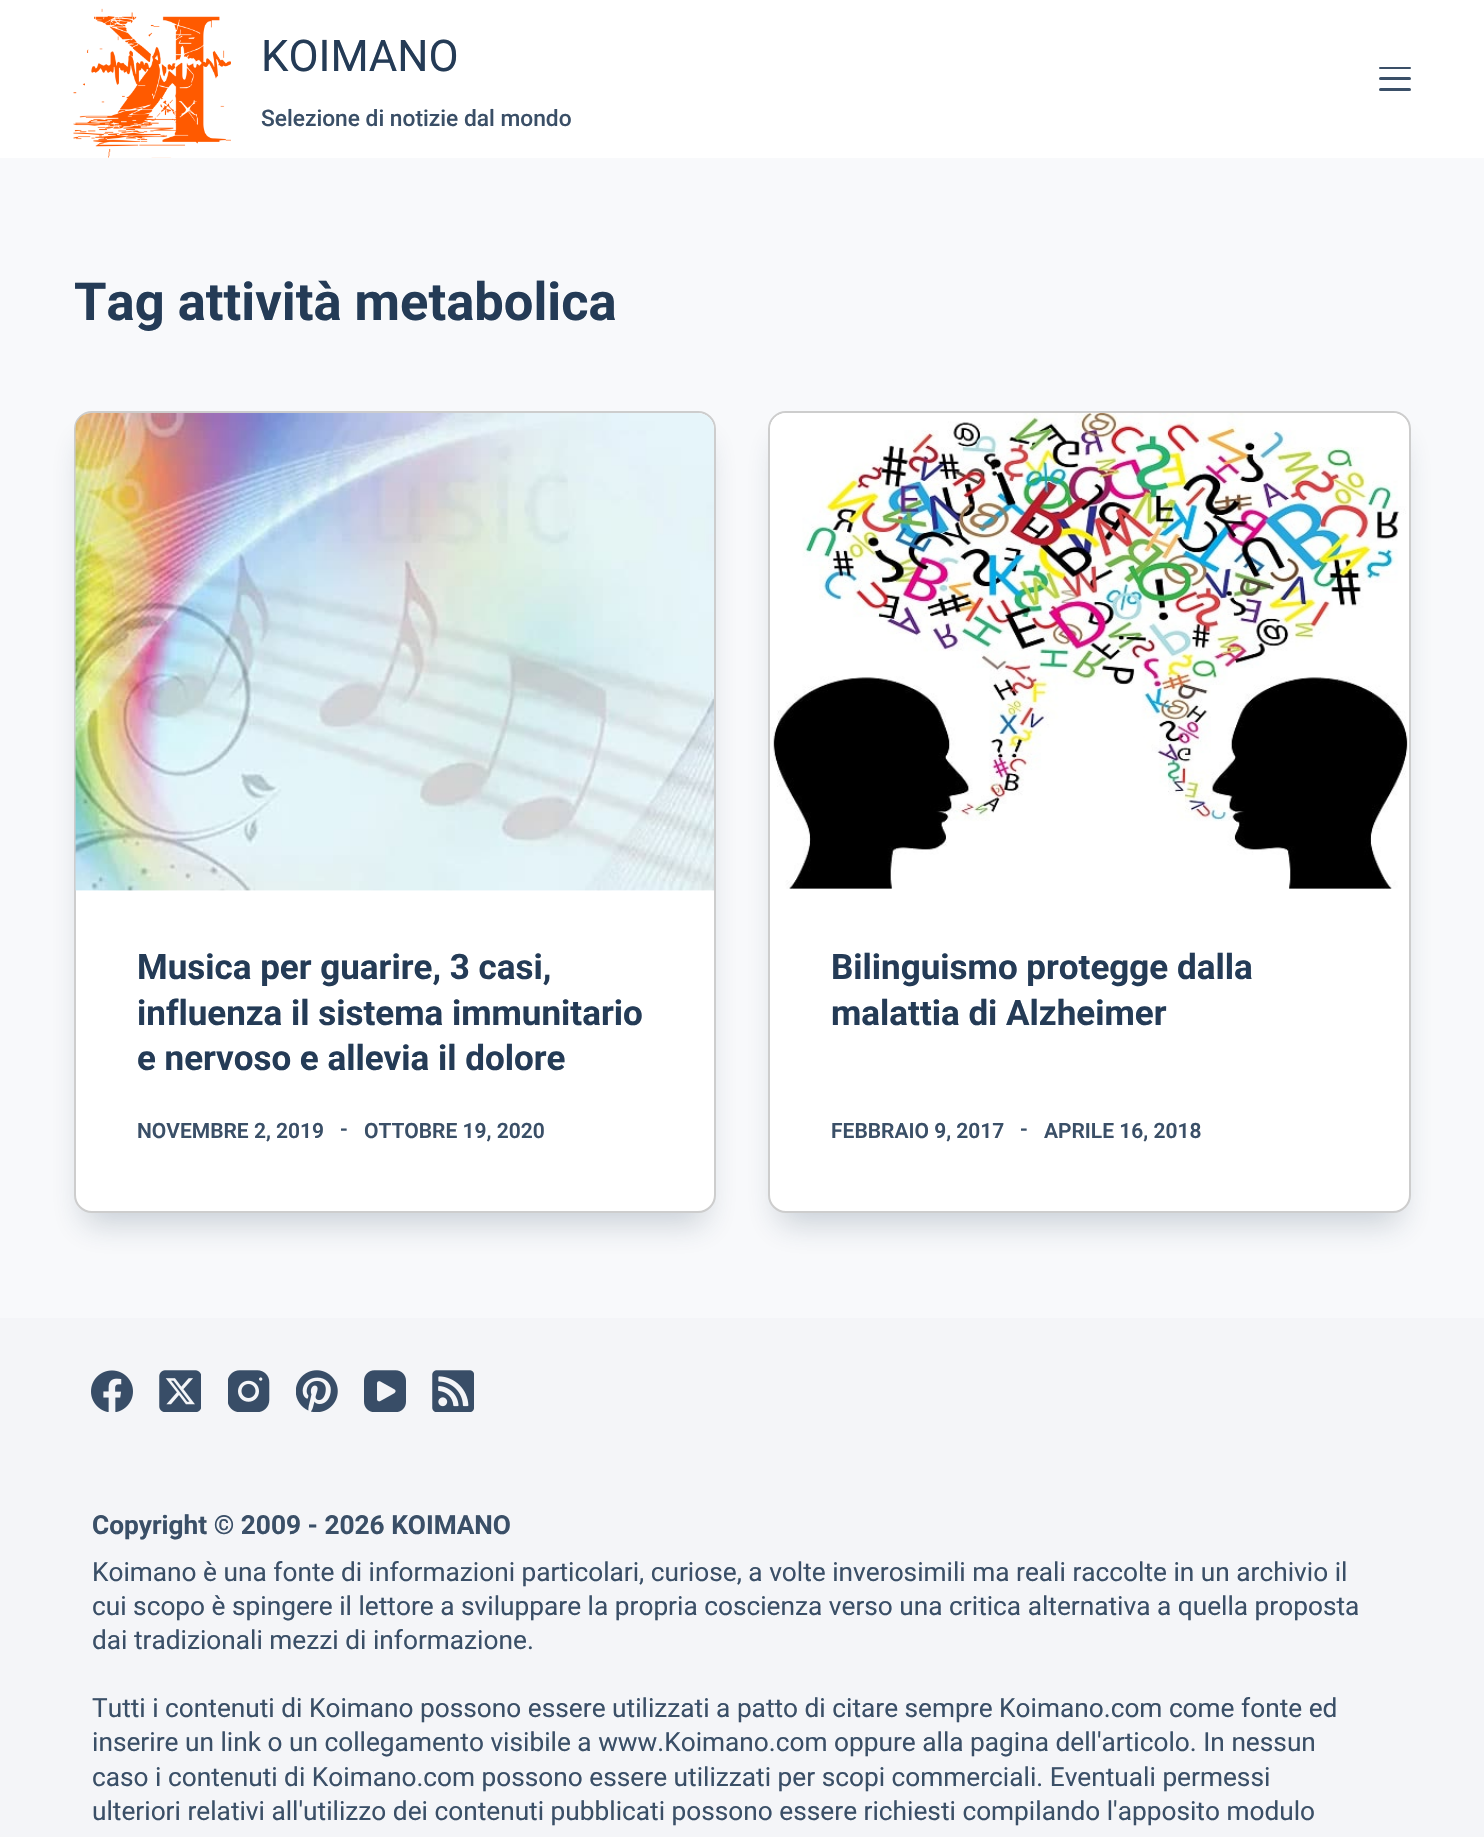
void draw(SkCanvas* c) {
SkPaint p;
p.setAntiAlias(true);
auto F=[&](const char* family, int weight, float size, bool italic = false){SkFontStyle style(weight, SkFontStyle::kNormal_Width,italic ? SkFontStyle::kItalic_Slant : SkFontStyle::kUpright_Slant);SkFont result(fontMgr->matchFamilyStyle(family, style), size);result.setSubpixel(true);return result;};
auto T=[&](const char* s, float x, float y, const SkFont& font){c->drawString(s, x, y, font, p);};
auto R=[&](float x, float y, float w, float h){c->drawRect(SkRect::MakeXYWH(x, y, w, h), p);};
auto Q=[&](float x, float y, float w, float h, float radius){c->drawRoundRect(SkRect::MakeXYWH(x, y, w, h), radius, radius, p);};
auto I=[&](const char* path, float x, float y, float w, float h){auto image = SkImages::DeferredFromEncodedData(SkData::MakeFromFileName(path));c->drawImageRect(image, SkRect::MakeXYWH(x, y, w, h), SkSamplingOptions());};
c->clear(0xfff8f9fb);
p.setColor(0xffffffff);
R(0,0,1484,158);
I("1.png",73,8,158,150);
auto f1 = F("Roboto",400,43.75);
p.setColor(0xff243b56);
T("KOIMANO",261,71,f1);
auto f2 = F("Roboto",500,22.75);
p.setColor(0xff3a4f67);
T("Selezione di notizie dal mondo",261,126,f2);
Q(1379,67,32,2,1);
Q(1379,77,32,3,1.5);
Q(1379,88,32,3,1.5);
auto f3 = F("Roboto",700,52.5);
p.setColor(0xff243b56);
T("Tag attività metabolica",74,320,f3);
p.setColor(0x3b243c56);
p.setMaskFilter(SkMaskFilter::MakeBlur(kNormal_SkBlurStyle, 16));
c->drawRoundRect(SkRect::MakeXYWH(84,443,621,780),7,7,p);
p.setMaskFilter(nullptr);
p.setColor(0xffffffff);
c->drawRoundRect(SkRect::MakeXYWH(75,412,640,800),17,17,p);
p.setStroke(true);
p.setStrokeWidth(2);
p.setColor(0xffcdcdcd);
c->drawRoundRect(SkRect::MakeXYWH(75,412,640,800),17,17,p);
I("2.png",75,413,639,478);
auto f4 = F("Roboto",700,35);
p.setStroke(false);
p.setColor(0xff243b56);
T("Musica per guarire, 3 casi,",137,979,f4);
T("influenza il sistema immunitario",137,1025,f4);
T("e nervoso e allevia il dolore",137,1070,f4);
auto f5 = F("Roboto",600,21);
p.setColor(0xff3a4f67);
T("NOVEMBRE 2, 2019",137,1138,f5);
T("-",340,1136,f5);
T("OTTOBRE 19, 2020",364,1138,f5);
p.setColor(0x3b243c56);
p.setMaskFilter(SkMaskFilter::MakeBlur(kNormal_SkBlurStyle, 16));
c->drawRoundRect(SkRect::MakeXYWH(779,443,621,780),7,7,p);
p.setMaskFilter(nullptr);
p.setColor(0xffffffff);
c->drawRoundRect(SkRect::MakeXYWH(769,412,641,800),17,17,p);
p.setStroke(true);
p.setColor(0xffcdcdcd);
c->drawRoundRect(SkRect::MakeXYWH(769,412,641,800),17,17,p);
I("3.png",770,413,638,476);
p.setStroke(false);
p.setColor(0xff243b56);
T("Bilinguismo protegge dalla",831,979,f4);
T("malattia di Alzheimer",831,1025,f4);
p.setColor(0xff3a4f67);
T("FEBBRAIO 9, 2017",831,1138,f5);
T("-",1020,1136,f5);
T("APRILE 16, 2018",1044,1138,f5);
p.setColor(0xfff4f5f8);
R(0,1318,1484,519);
I("4.png",91,1370,42,42);
I("5.png",159,1370,42,42);
I("6.png",228,1370,42,42);
I("7.png",296,1370,42,42);
I("8.png",364,1370,42,42);
I("9.png",432,1370,42,42);
auto f6 = F("Roboto",700,26.25);
p.setColor(0xff3a4f67);
T("Copyright © 2009 - 2026 KOIMANO",92,1534,f6);
auto f7 = F("Roboto",400,26.25);
T("Koimano è una fonte di informazioni particolari, curiose, a volte inverosimili ma reali raccolte in un archivio il",92,1581,f7);
T("cui scopo è spingere il lettore a sviluppare la propria coscienza verso una critica alternativa a quella proposta",92,1615,f7);
T("dai tradizionali mezzi di informazione.",92,1649,f7);
T("Tutti i contenuti di Koimano possono essere utilizzati a patto di citare sempre Koimano.com come fonte ed",92,1717,f7);
T("inserire un link o un collegamento visibile a www.Koimano.com oppure alla pagina dell'articolo. In nessun",92,1751,f7);
T("caso i contenuti di Koimano.com possono essere utilizzati per scopi commerciali. Eventuali permessi",92,1786,f7);
T("ulteriori relativi all'utilizzo dei contenuti pubblicati possono essere richiesti compilando l'apposito modulo",92,1820,f7);
}
